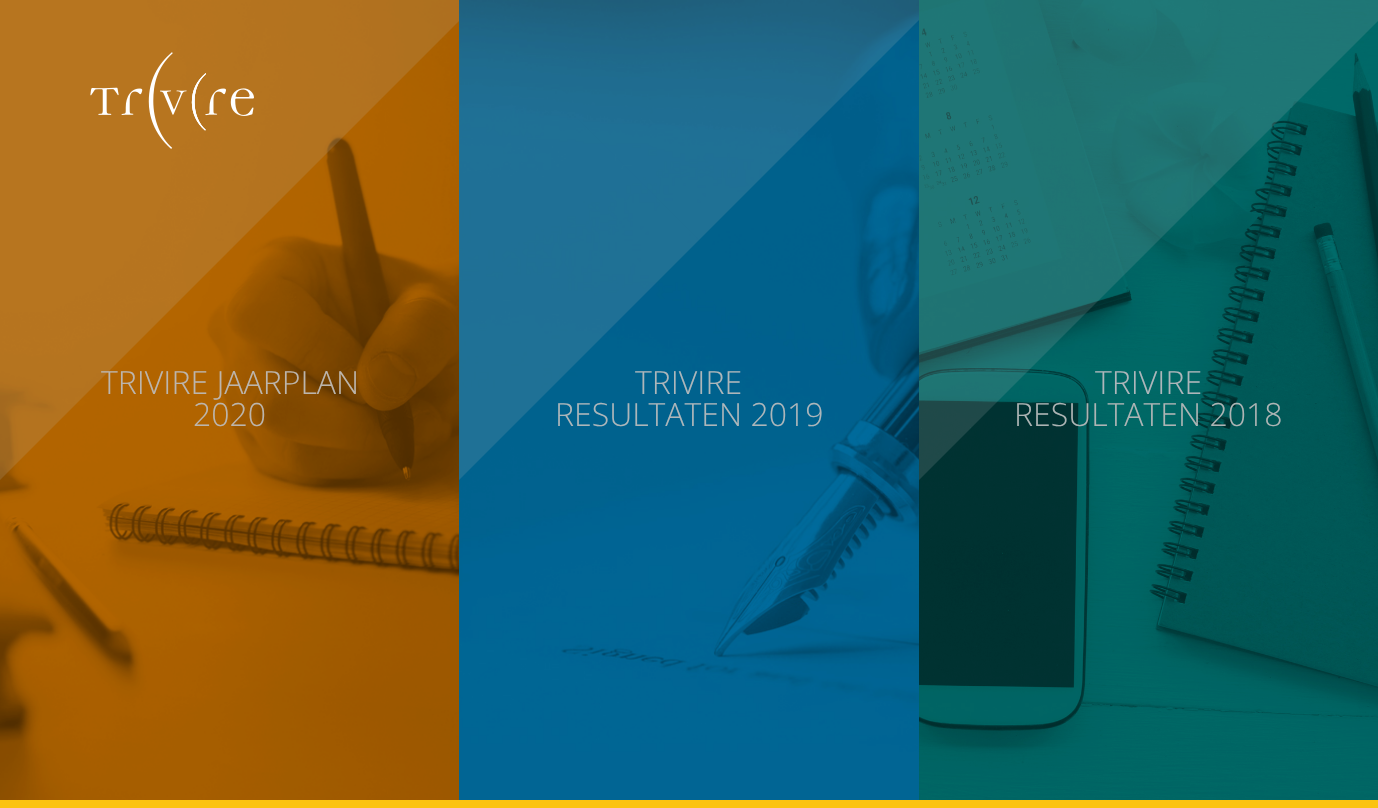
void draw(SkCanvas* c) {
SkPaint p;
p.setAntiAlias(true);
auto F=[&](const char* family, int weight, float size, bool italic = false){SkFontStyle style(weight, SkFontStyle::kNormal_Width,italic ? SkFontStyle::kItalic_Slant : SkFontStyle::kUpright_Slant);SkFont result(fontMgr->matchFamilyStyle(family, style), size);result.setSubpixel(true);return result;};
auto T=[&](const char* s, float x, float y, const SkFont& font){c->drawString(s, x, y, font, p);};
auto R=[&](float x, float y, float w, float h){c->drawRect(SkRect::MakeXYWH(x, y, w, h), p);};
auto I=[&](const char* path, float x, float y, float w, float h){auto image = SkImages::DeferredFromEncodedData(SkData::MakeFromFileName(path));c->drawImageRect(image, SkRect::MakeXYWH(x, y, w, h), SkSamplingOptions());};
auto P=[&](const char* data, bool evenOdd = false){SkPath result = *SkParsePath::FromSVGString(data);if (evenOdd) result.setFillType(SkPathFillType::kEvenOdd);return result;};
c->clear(0xffffffff);
I("2.png",0,0,459,800);
p.setColor(0x29bfbfbf);
c->drawPath(P("M0 0h480l-240 240z"),p);
auto f1 = F("Open Sans",300,32);
p.setColor(0xffbcb5ad);
T("TRIVIRE JAARPLAN",101,394,f1);
T("2020",193,426,f1);
p.setColor(0x29bfbfbf);
c->drawPath(P("M0 480v-480l240 240z"),p);
I("1.png",90,52,164,97);
I("3.png",459,0,460,800);
c->drawPath(P("M459 0h480l-240 240z"),p);
p.setColor(0xffadb6ba);
T("TRIVIRE",635,394,f1);
T("RESULTATEN 2019",555,426,f1);
p.setColor(0x29bfbfbf);
c->drawPath(P("M459 480v-480l240 240z"),p);
I("4.png",919,0,459,800);
c->drawPath(P("M919 0h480l-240 240z"),p);
p.setColor(0xffadb6ba);
T("TRIVIRE",1095,394,f1);
p.setColor(0xffadb4b4);
T("RESULTATEN 2018",1014,426,f1);
p.setColor(0x29bfbfbf);
c->drawPath(P("M919 480v-480l240 240z"),p);
p.setColor(0xfffbc30f);
R(0,800,1378,8);
}
